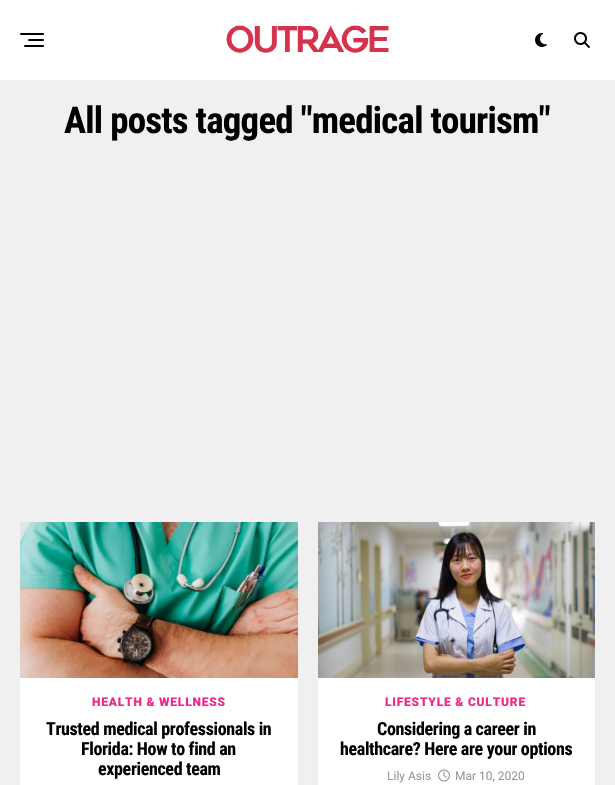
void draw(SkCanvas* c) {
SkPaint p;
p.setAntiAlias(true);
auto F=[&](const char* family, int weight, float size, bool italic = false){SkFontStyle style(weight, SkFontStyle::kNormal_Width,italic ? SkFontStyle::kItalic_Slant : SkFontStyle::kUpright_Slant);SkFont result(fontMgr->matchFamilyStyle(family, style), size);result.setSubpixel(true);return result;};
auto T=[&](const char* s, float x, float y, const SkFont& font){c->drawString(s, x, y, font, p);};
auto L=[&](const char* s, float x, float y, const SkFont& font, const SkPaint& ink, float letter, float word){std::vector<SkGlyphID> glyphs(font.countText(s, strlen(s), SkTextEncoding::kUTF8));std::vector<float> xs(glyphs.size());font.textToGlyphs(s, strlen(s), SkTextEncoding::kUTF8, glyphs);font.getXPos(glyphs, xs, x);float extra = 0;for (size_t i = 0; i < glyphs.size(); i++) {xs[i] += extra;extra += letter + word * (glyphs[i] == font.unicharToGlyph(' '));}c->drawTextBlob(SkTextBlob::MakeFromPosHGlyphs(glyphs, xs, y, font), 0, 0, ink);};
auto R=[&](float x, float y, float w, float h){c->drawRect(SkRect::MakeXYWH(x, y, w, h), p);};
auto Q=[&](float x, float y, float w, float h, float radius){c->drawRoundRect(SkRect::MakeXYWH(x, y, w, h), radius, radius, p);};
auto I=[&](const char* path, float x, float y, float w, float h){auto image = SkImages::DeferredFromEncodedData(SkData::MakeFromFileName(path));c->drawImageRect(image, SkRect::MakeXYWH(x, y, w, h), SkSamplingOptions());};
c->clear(0xfff0f0f0);
p.setColor(0xffffffff);
R(0,0,615,80);
p.setColor(0xff000000);
Q(20,33,24,2,1);
Q(28,39,16,2,1);
Q(24,45,20,2,1);
I("1.png",226,25,163,28);
I("2.png",535,33,12,14);
I("3.png",574,32,16,16);
auto f1 = F("Roboto Condensed",700,36.9);
L("All posts tagged \"medical tourism\"",64,133,f1,p,-.75,0);
p.setColor(0xffffffff);
R(20,678,278,107);
I("4.png",20,522,278,156);
auto f2 = F("Roboto",900,12);
p.setColor(0xffec2b8c);
L("HEALTH & WELLNESS",92,706,f2,p,.8,0);
auto f3 = F("Roboto Condensed",700,18);
p.setColor(0xff000000);
L("Trusted medical professionals in",46,735,f3,p,-.35,0);
L("Florida: How to find an",81,755,f3,p,-.35,0);
L("experienced team",98,775,f3,p,-.35,0);
p.setColor(0xffffffff);
R(318,678,277,107);
I("5.png",318,522,277,156);
p.setColor(0xffec2b8c);
L("LIFESTYLE & CULTURE",385,706,f2,p,.8,0);
p.setColor(0xff000000);
L("Considering a career in",377,735,f3,p,-.35,0);
L("healthcare? Here are your options",340,755,f3,p,-.35,0);
auto f4 = F("Roboto",400,12);
p.setColor(0xff999999);
T("Lily Asis",387,780,f4);
I("6.png",438,769,12,13);
T("Mar 10, 2020",455,780,f4);
}
